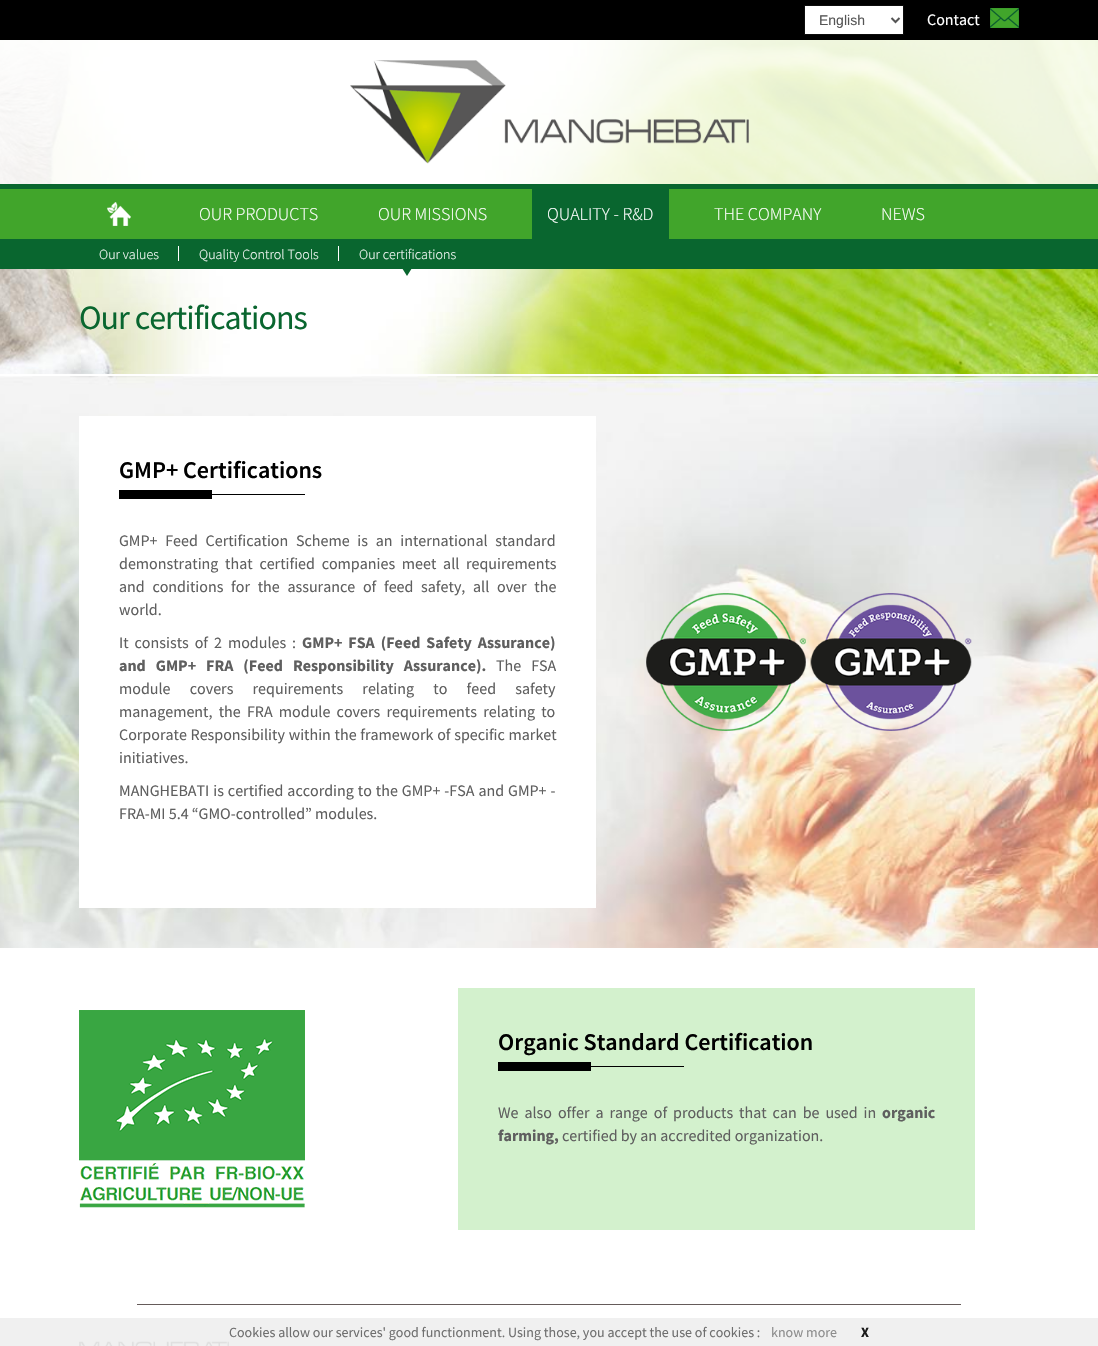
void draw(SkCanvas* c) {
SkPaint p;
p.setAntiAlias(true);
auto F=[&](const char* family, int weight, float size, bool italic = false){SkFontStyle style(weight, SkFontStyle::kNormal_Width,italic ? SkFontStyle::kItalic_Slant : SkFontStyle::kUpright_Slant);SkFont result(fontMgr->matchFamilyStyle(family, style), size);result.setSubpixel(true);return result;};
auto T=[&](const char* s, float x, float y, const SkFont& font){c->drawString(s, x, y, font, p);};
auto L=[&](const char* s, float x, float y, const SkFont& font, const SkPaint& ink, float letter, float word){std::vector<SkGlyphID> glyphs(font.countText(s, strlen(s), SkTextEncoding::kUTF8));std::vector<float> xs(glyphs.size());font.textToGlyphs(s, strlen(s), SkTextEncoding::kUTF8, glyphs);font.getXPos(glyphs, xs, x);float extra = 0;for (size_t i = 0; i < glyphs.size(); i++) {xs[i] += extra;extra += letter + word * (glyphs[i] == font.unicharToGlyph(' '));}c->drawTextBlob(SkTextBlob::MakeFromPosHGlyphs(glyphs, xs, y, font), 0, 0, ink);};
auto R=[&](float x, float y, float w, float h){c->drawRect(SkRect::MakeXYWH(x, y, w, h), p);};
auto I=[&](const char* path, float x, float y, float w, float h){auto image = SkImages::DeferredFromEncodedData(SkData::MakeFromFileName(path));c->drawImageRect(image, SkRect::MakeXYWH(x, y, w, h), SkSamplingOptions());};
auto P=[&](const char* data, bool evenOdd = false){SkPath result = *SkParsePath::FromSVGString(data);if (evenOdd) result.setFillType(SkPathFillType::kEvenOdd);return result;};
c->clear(0xffffffff);
p.setColor(0xfff0f0f0);
R(0,1318,1098,28);
I("1.png",0,40,1098,334);
p.setColor(0xff000000);
R(0,0,1098,40);
p.setColor(0xffffffff);
c->drawRect(SkRect::MakeXYWH(804.5,5.5,99,29),p);
p.setStroke(true);
p.setStrokeWidth(1);
p.setColor(0xff0d0d0d);
c->drawRect(SkRect::MakeXYWH(804.5,5.5,99,29),p);
p.setStrokeWidth(2);
p.setColor(0xff555555);
c->drawPath(P("M891.5 18l4 4l4-4"),p);
auto f1 = F("Liberation Sans",400,14);
p.setStroke(false);
T("English",819,25,f1);
auto f2 = F("Source Sans Pro",400,16);
p.setColor(0xffffffff);
T("Contact",927,25,f2);
p.setColor(0xff0c5d2f);
R(990,8,29,20);
I("2.png",990,8,29,20);
p.setColor(0xccffffff);
R(0,40,1098,144);
I("3.png",350,60,399,104);
p.setColor(0xff41a52b);
R(0,189,1098,50);
p.setColor(0xff09662f);
R(0,184,1098,5);
I("4.png",107,202,24,24);
R(532,189,137,50);
auto f3 = F("Source Sans Pro",300,18);
p.setColor(0xffffffff);
T("QUALITY - R&D",547,220,f3);
p.setColor(0xff09662f);
R(0,239,1098,30);
auto f4 = F("Source Sans Pro",300,14);
p.setColor(0xffffffff);
T("Our values",99,259,f4);
R(178,246,1,15);
T("Quality Control Tools",199,259,f4);
R(338,246,1,15);
T("Our certifications",359,259,f4);
p.setColor(0xff09662f);
c->drawPath(P("M402 268h10l-5 8z"),p);
p.setColor(0xffffffff);
T("OUR PRODUCTS",199,220,f3);
T("OUR MISSIONS",378,220,f3);
T("THE COMPANY",714,220,f3);
T("NEWS",881,220,f3);
auto f5 = F("Source Sans Pro",400,34);
p.setColor(0xff09662f);
L("Our certifications",79,329,f5,p,-1,0);
I("5.png",0,376,1098,572);
p.setColor(0xffffffff);
R(79,416,517,492);
auto f6 = F("Source Sans Pro",600,24);
p.setColor(0xff000000);
T("GMP+ Certifications",119,478,f6);
R(119,490,93,9);
R(212,494,93,1);
p.setColor(0xff5f5f5f);
L("GMP+ Feed Certification Scheme is an international standard",119,546,f2,p,0,4.5);
L("demonstrating that certified companies meet all requirements",119,569,f2,p,0,3.5);
L("and conditions for the assurance of feed safety, all over the",119,592,f2,p,0,4.5);
T("world.",119,615,f2);
L("It consists of 2 modules :",119,648,f2,p,0,2.75);
auto f7 = F("Source Sans Pro",700,16);
L("GMP+ FSA (Feed Safety Assurance)",302,648,f7,p,0,2.75);
L("and GMP+ FRA (Feed Responsibility Assurance).",119,671,f7,p,0,6.75);
L("The FSA",496,671,f2,p,0,6.75);
L("module covers requirements relating to feed safety",119,694,f2,p,0,16);
L("management, the FRA module covers requirements relating to",119,717,f2,p,0,3);
L("Corporate Responsibility within the framework of specific market",119,740,f2,p,0,.5);
T("initiatives.",119,763,f2);
L("MANGHEBATI is certified according to the GMP+ -FSA and GMP+ -",119,796,f2,p,0,.75);
T("FRA-MI 5.4 “GMO-controlled” modules.",119,819,f2);
I("6.png",646,593,326,138);
I("7.png",79,1010,226,198);
p.setColor(0xffd3f1cd);
R(458,988,517,242);
p.setColor(0xff000000);
T("Organic Standard Certification",498,1050,f6);
R(498,1062,93,9);
R(591,1066,93,1);
p.setColor(0xff5f5f5f);
L("We also offer a range of products that can be used in",498,1118,f2,p,0,2.75);
T("organic",882,1118,f7);
T("farming,",498,1141,f7);
T("certified by an accredited organization.",562,1141,f2);
p.setColor(0xff655b5a);
R(137,1304,824,1);
I("8.png",79,1341,150,5);
auto f8 = F("Source Sans Pro",400,14);
p.setColor(0xff6f6f6f);
T("Cookies allow our services' good functionment. Using those, you accept the use of cookies :",229,1337,f8);
p.setColor(0xff8d8d8d);
T("know more",771,1337,f8);
auto f9 = F("Source Sans Pro",700,14);
p.setColor(0xff1a1a1a);
T("X",861,1337,f9);
}
